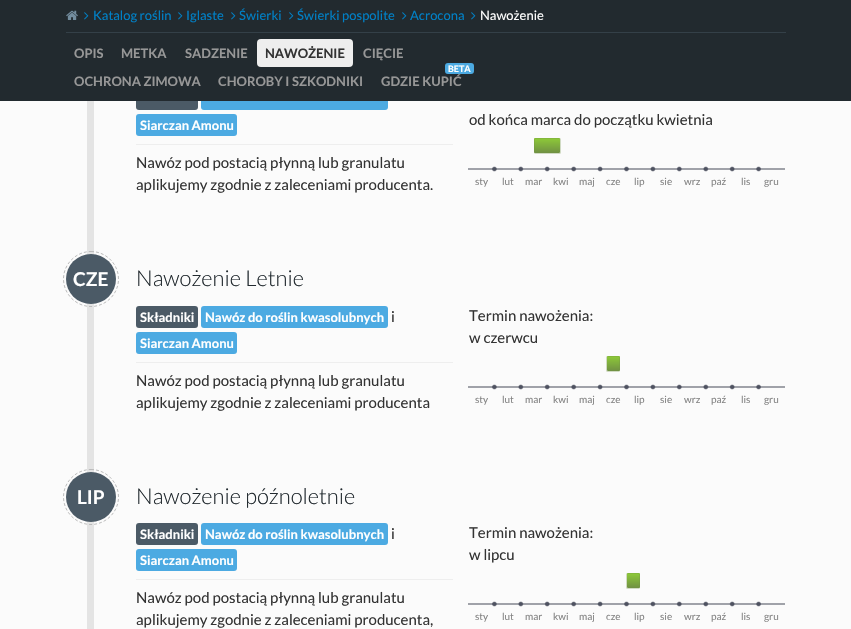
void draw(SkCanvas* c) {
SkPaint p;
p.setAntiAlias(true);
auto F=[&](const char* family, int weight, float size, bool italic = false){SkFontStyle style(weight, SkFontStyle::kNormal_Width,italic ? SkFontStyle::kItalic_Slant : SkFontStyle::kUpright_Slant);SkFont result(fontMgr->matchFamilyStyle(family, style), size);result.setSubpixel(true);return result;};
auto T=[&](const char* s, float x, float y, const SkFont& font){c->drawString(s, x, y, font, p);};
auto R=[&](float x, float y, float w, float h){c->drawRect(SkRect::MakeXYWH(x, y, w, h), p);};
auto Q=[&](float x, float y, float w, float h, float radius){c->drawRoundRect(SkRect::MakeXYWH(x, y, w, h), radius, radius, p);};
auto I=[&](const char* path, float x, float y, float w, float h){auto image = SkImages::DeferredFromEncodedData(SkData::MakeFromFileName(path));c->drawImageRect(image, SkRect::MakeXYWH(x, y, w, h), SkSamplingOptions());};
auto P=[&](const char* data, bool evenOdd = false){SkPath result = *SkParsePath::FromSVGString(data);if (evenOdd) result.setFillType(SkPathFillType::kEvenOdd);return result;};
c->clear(0xfffbfbfb);
p.setColor(0xff4b5a66);
Q(136,88,62,22,3);
p.setColor(0xff4caae2);
Q(201,88,187,22,3);
p.setColor(0xff222a2f);
R(0,0,851,101);
p.setColor(0xff344048);
R(66,32,720,1);
I("1.png",66,10,12,10);
I("2.png",84,12,5,8);
auto f1 = F("Lato",400,13);
p.setColor(0xff0080c6);
T("Katalog roślin",93,20,f1);
I("2.png",178,12,5,8);
T("Iglaste",186,20,f1);
I("2.png",231,12,5,8);
T("Świerki",239,20,f1);
I("2.png",289,12,5,8);
T("Świerki pospolite",297,20,f1);
I("2.png",402,12,5,8);
T("Acrocona",410,20,f1);
I("2.png",471,12,5,8);
p.setColor(0xffffffff);
T("Nawożenie",480,20,f1);
auto f2 = F("Lato",700,13);
p.setColor(0xff979797);
T("OPIS",74,58,f2);
T("METKA",121,58,f2);
T("SADZENIE",185,58,f2);
p.setColor(0xffeeeeee);
Q(257,39,96,28,4);
p.setColor(0xff333333);
T("NAWOŻENIE",265,58,f2);
p.setColor(0xff979797);
T("CIĘCIE",363,58,f2);
T("OCHRONA ZIMOWA",74,86,f2);
T("CHOROBY I SZKODNIKI",218,86,f2);
p.setColor(0xff4caae2);
Q(445,63,29,11,3);
auto f3 = F("Lato",700,9);
p.setColor(0xffffffff);
T("BETA",448,72,f3);
p.setColor(0xff979797);
T("GDZIE KUPIĆ",381,86,f2);
p.setColor(0xffe4e4e4);
R(87,101,7,528);
p.setColor(0xff4caae2);
Q(136,114,101,22,3);
p.setColor(0xffffffff);
T("Siarczan Amonu",140,130,f2);
p.setColor(0xffeeeeee);
R(136,144,317,1);
auto f4 = F("Lato",400,15);
p.setColor(0xff333333);
T("Nawóz pod postacią płynną lub granulatu",136,168,f4);
T("aplikujemy zgodnie z zaleceniami producenta.",136,190,f4);
T("od końca marca do początku kwietnia",469,125,f4);
I("3.png",468,138,317,34);
auto f5 = F("Lato",400,10);
p.setColor(0xff848484);
T("sty",475,185,f5);
T("lut",502,185,f5);
T("mar",525,185,f5);
T("kwi",553,185,f5);
T("maj",579,185,f5);
T("cze",606,185,f5);
T("lip",634,185,f5);
T("sie",660,185,f5);
T("wrz",684,185,f5);
T("paź",711,185,f5);
T("lis",741,185,f5);
T("gru",764,185,f5);
p.setColor(0xff4b5a66);
c->drawCircle(91,279,25,p);
auto f6 = F("Lato",700,19);
p.setColor(0xffffffff);
T("CZE",73,286,f6);
p.setStroke(true);
p.setStrokeWidth(1);
p.setColor(0xffbbbbbb);
p.setPathEffect(SkDashPathEffect::Make({{3,2}}, 0));
c->drawPath(P("M91 251.5c15 0 27.5 12.5 27.5 27.5c0 15-12.5 27.5-27.5 27.5c-15 0-27.5-12.5-27.5-27.5c0-15 12.5-27.5 27.5-27.5z"),p);
p.setPathEffect(nullptr);
auto f7 = F("Lato",300,22);
p.setStroke(false);
p.setColor(0xff222a2f);
T("Nawożenie Letnie",136,286,f7);
p.setColor(0xff4b5a66);
Q(136,306,62,22,3);
p.setColor(0xffffffff);
T("Składniki",140,322,f2);
p.setColor(0xff4caae2);
Q(201,306,187,22,3);
p.setColor(0xffffffff);
T("Nawóz do roślin kwasolubnych",205,322,f2);
p.setColor(0xff333333);
T("i",391,322,f4);
p.setColor(0xff4caae2);
Q(136,332,101,22,3);
p.setColor(0xffffffff);
T("Siarczan Amonu",140,348,f2);
p.setColor(0xffeeeeee);
R(136,362,317,1);
p.setColor(0xff333333);
T("Nawóz pod postacią płynną lub granulatu",136,386,f4);
T("aplikujemy zgodnie z zaleceniami producenta",136,408,f4);
T("Termin nawożenia:",469,321,f4);
T("w czerwcu",469,343,f4);
I("4.png",468,356,317,34);
p.setColor(0xff848484);
T("sty",475,403,f5);
T("lut",502,403,f5);
T("mar",525,403,f5);
T("kwi",553,403,f5);
T("maj",579,403,f5);
T("cze",606,403,f5);
T("lip",634,403,f5);
T("sie",660,403,f5);
T("wrz",684,403,f5);
T("paź",711,403,f5);
T("lis",741,403,f5);
T("gru",764,403,f5);
p.setColor(0xff4b5a66);
c->drawCircle(91,497,25,p);
p.setColor(0xffffffff);
T("LIP",77,504,f6);
p.setStroke(true);
p.setColor(0xffbbbbbb);
p.setPathEffect(SkDashPathEffect::Make({{3,2}}, 0));
c->drawPath(P("M91 469.5c15 0 27.5 12.5 27.5 27.5c0 15-12.5 27.5-27.5 27.5c-15 0-27.5-12.5-27.5-27.5c0-15 12.5-27.5 27.5-27.5z"),p);
p.setPathEffect(nullptr);
p.setStroke(false);
p.setColor(0xff222a2f);
T("Nawożenie późnoletnie",136,504,f7);
p.setColor(0xff4b5a66);
Q(136,523,62,22,3);
p.setColor(0xffffffff);
T("Składniki",140,539,f2);
p.setColor(0xff4caae2);
Q(201,523,187,22,3);
p.setColor(0xffffffff);
T("Nawóz do roślin kwasolubnych",205,539,f2);
p.setColor(0xff333333);
T("i",391,539,f4);
p.setColor(0xff4caae2);
Q(136,549,101,22,3);
p.setColor(0xffffffff);
T("Siarczan Amonu",140,565,f2);
p.setColor(0xffeeeeee);
R(136,579,317,1);
p.setColor(0xff333333);
T("Nawóz pod postacią płynną lub granulatu",136,603,f4);
T("aplikujemy zgodnie z zaleceniami producenta,",136,625,f4);
T("Termin nawożenia:",469,538,f4);
T("w lipcu",469,560,f4);
I("5.png",468,573,317,34);
p.setColor(0xff848484);
T("sty",475,620,f5);
T("lut",502,620,f5);
T("mar",525,620,f5);
T("kwi",553,620,f5);
T("maj",579,620,f5);
T("cze",606,620,f5);
T("lip",634,620,f5);
T("sie",660,620,f5);
T("wrz",684,620,f5);
T("paź",711,620,f5);
T("lis",741,620,f5);
T("gru",764,620,f5);
}
